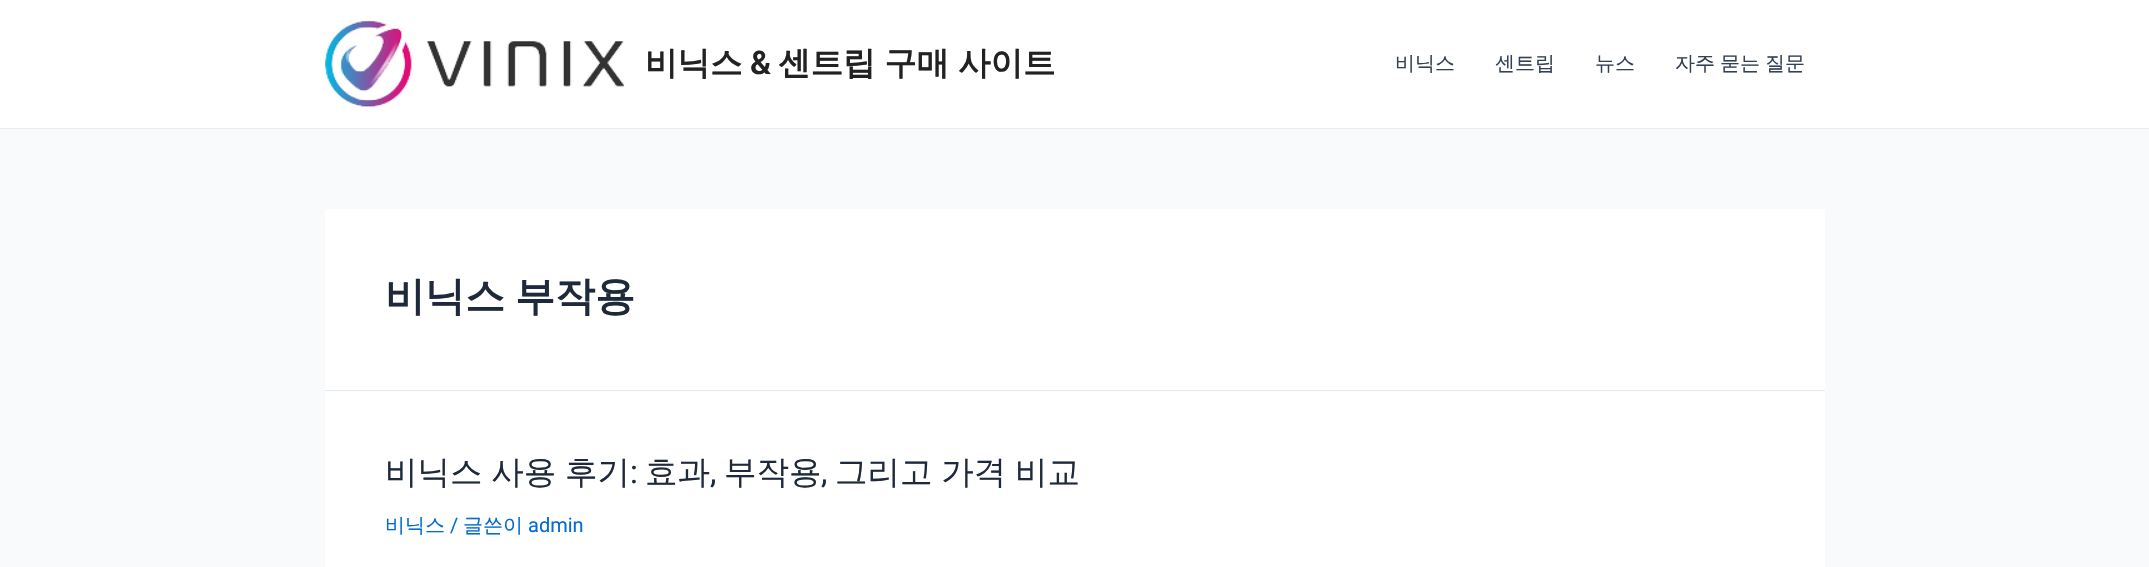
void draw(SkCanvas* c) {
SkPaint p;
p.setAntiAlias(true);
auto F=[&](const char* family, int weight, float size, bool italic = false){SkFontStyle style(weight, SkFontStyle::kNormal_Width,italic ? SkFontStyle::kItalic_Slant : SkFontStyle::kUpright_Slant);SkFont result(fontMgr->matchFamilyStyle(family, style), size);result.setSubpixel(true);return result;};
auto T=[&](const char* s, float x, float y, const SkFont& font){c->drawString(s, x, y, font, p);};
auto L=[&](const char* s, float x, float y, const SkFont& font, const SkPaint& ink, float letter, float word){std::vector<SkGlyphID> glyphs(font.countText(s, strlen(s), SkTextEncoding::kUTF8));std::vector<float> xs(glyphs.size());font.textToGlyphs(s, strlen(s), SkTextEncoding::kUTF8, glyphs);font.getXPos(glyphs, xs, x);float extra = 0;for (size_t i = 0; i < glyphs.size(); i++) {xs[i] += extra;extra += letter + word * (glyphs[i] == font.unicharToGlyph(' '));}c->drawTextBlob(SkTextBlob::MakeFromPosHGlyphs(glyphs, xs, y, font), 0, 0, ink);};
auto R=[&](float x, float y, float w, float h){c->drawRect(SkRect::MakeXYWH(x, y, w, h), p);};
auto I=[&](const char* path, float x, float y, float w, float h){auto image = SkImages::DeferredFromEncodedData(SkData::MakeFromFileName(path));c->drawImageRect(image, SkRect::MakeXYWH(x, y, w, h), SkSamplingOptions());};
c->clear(0xfff9fafb);
p.setColor(0xffffffff);
R(0,0,2149,128);
p.setColor(0xffeaeaea);
R(0,128,2149,1);
I("1.png",325,20,300,87);
auto f1 = F("WenQuanYi Zen Hei",700,32.5);
p.setColor(0xff222222);
T("비닉스",645,74,f1);
auto f2 = F("Roboto",600,32.5);
T("&",750,74,f2);
L("센트립 구매 사이트",778,74,f1,p,0,-1);
auto f3 = F("WenQuanYi Zen Hei",500,20);
p.setColor(0xff334155);
T("비닉스",1395,70,f3);
T("센트립",1495,70,f3);
T("뉴스",1595,70,f3);
L("자주 묻는 질문",1675,70,f3,p,0,-1);
p.setColor(0xffffffff);
R(325,209,1500,181);
p.setColor(0xffe2e8f0);
R(325,390,1500,1);
auto f4 = F("WenQuanYi Zen Hei",700,40);
p.setColor(0xff1e293b);
L("비닉스 부작용",385,310,f4,p,0,-2);
p.setColor(0xffffffff);
R(325,391,1500,176);
auto f5 = F("WenQuanYi Zen Hei",500,32.5);
p.setColor(0xff1e293b);
L("비닉스 사용 후기",385,483,f5,p,0,-1);
auto f6 = F("Roboto",400,32.5);
T(":",630,483,f6);
T("효과",645,483,f5);
T(",",710,483,f6);
T("부작용",724,483,f5);
T(",",821,483,f6);
L("그리고 가격 비교",835,483,f5,p,0,-1);
p.setColor(0xff046bd2);
T("비닉스",385,532,f3);
auto f7 = F("Roboto",400,20);
T("/",450,532,f7);
T("글쓴이",463,532,f3);
T("admin",528,532,f7);
}
